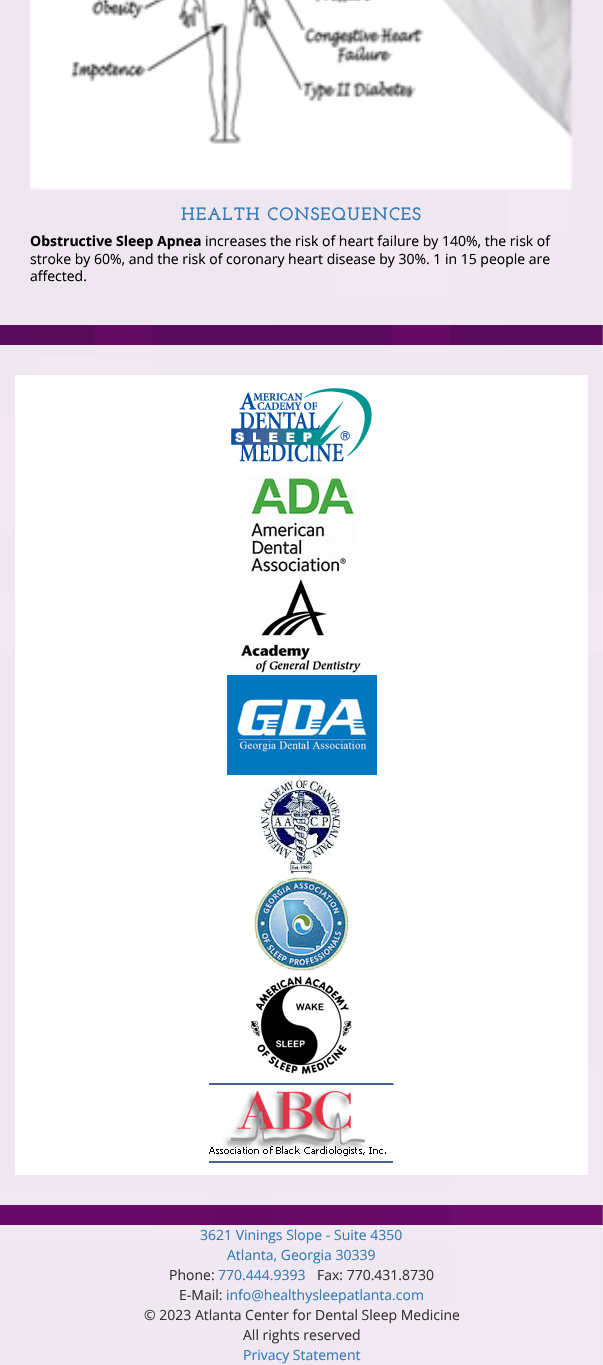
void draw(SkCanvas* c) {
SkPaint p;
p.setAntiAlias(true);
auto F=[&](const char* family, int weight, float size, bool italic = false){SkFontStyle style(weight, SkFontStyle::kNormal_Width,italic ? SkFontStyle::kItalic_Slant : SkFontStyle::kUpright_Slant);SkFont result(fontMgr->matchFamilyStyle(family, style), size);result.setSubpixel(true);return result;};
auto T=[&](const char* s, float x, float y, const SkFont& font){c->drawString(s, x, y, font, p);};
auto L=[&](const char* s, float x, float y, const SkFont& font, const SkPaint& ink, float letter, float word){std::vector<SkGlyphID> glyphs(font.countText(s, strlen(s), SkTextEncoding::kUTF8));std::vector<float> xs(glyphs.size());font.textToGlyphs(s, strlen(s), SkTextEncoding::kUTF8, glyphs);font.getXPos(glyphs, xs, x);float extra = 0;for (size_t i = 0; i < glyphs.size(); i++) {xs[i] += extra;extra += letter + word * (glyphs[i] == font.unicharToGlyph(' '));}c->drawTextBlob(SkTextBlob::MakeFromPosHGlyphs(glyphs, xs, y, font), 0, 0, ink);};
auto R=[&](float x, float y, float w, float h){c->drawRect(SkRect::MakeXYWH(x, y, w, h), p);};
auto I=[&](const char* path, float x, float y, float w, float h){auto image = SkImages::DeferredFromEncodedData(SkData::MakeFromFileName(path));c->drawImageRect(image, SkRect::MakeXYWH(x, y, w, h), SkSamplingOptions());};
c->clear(0xffffffff);
I("1.png",0,0,603,1365);
p.setColor(0xe6ffffff);
R(0,0,603,325);
I("2.png",30,0,543,190);
auto f1 = F("Josefin Slab",700,18);
p.setColor(0xff337ab7);
L("HEALTH CONSEQUENCES",181,220,f1,p,1,0);
auto f2 = F("Open Sans",700,14);
p.setColor(0xff000000);
T("Obstructive Sleep Apnea",30,246,f2);
auto f3 = F("Open Sans",400,14);
T("increases the risk of heart failure by 140%, the risk of",205,246,f3);
T("stroke by 60%, and the risk of coronary heart disease by 30%. 1 in 15 people are",30,264,f3);
T("affected.",30,281,f3);
p.setColor(0xe6ffffff);
R(0,345,603,860);
p.setColor(0xffffffff);
R(15,375,573,800);
I("3.png",231,388,141,74);
I("4.png",247,475,109,100);
I("5.png",240,579,122,94);
I("6.png",227,675,150,100);
I("7.png",259,775,85,100);
I("8.png",254,877,95,94);
I("9.png",250,976,102,98);
I("10.png",209,1083,185,80);
p.setColor(0xe6ffffff);
R(0,1225,603,140);
p.setColor(0xff337ab7);
T("3621 Vinings Slope - Suite 4350",200,1240,f3);
T("Atlanta, Georgia 30339",227,1260,f3);
p.setColor(0xff333333);
T("Phone:",169,1280,f3);
p.setColor(0xff337ab7);
T("770.444.9393",218,1280,f3);
p.setColor(0xff333333);
T("Fax: 770.431.8730",317,1280,f3);
T("E-Mail:",179,1300,f3);
p.setColor(0xff337ab7);
T("info@healthysleepatlanta.com",226,1300,f3);
p.setColor(0xff333333);
T("© 2023 Atlanta Center for Dental Sleep Medicine",144,1320,f3);
T("All rights reserved",243,1340,f3);
p.setColor(0xff337ab7);
T("Privacy Statement",243,1360,f3);
}
